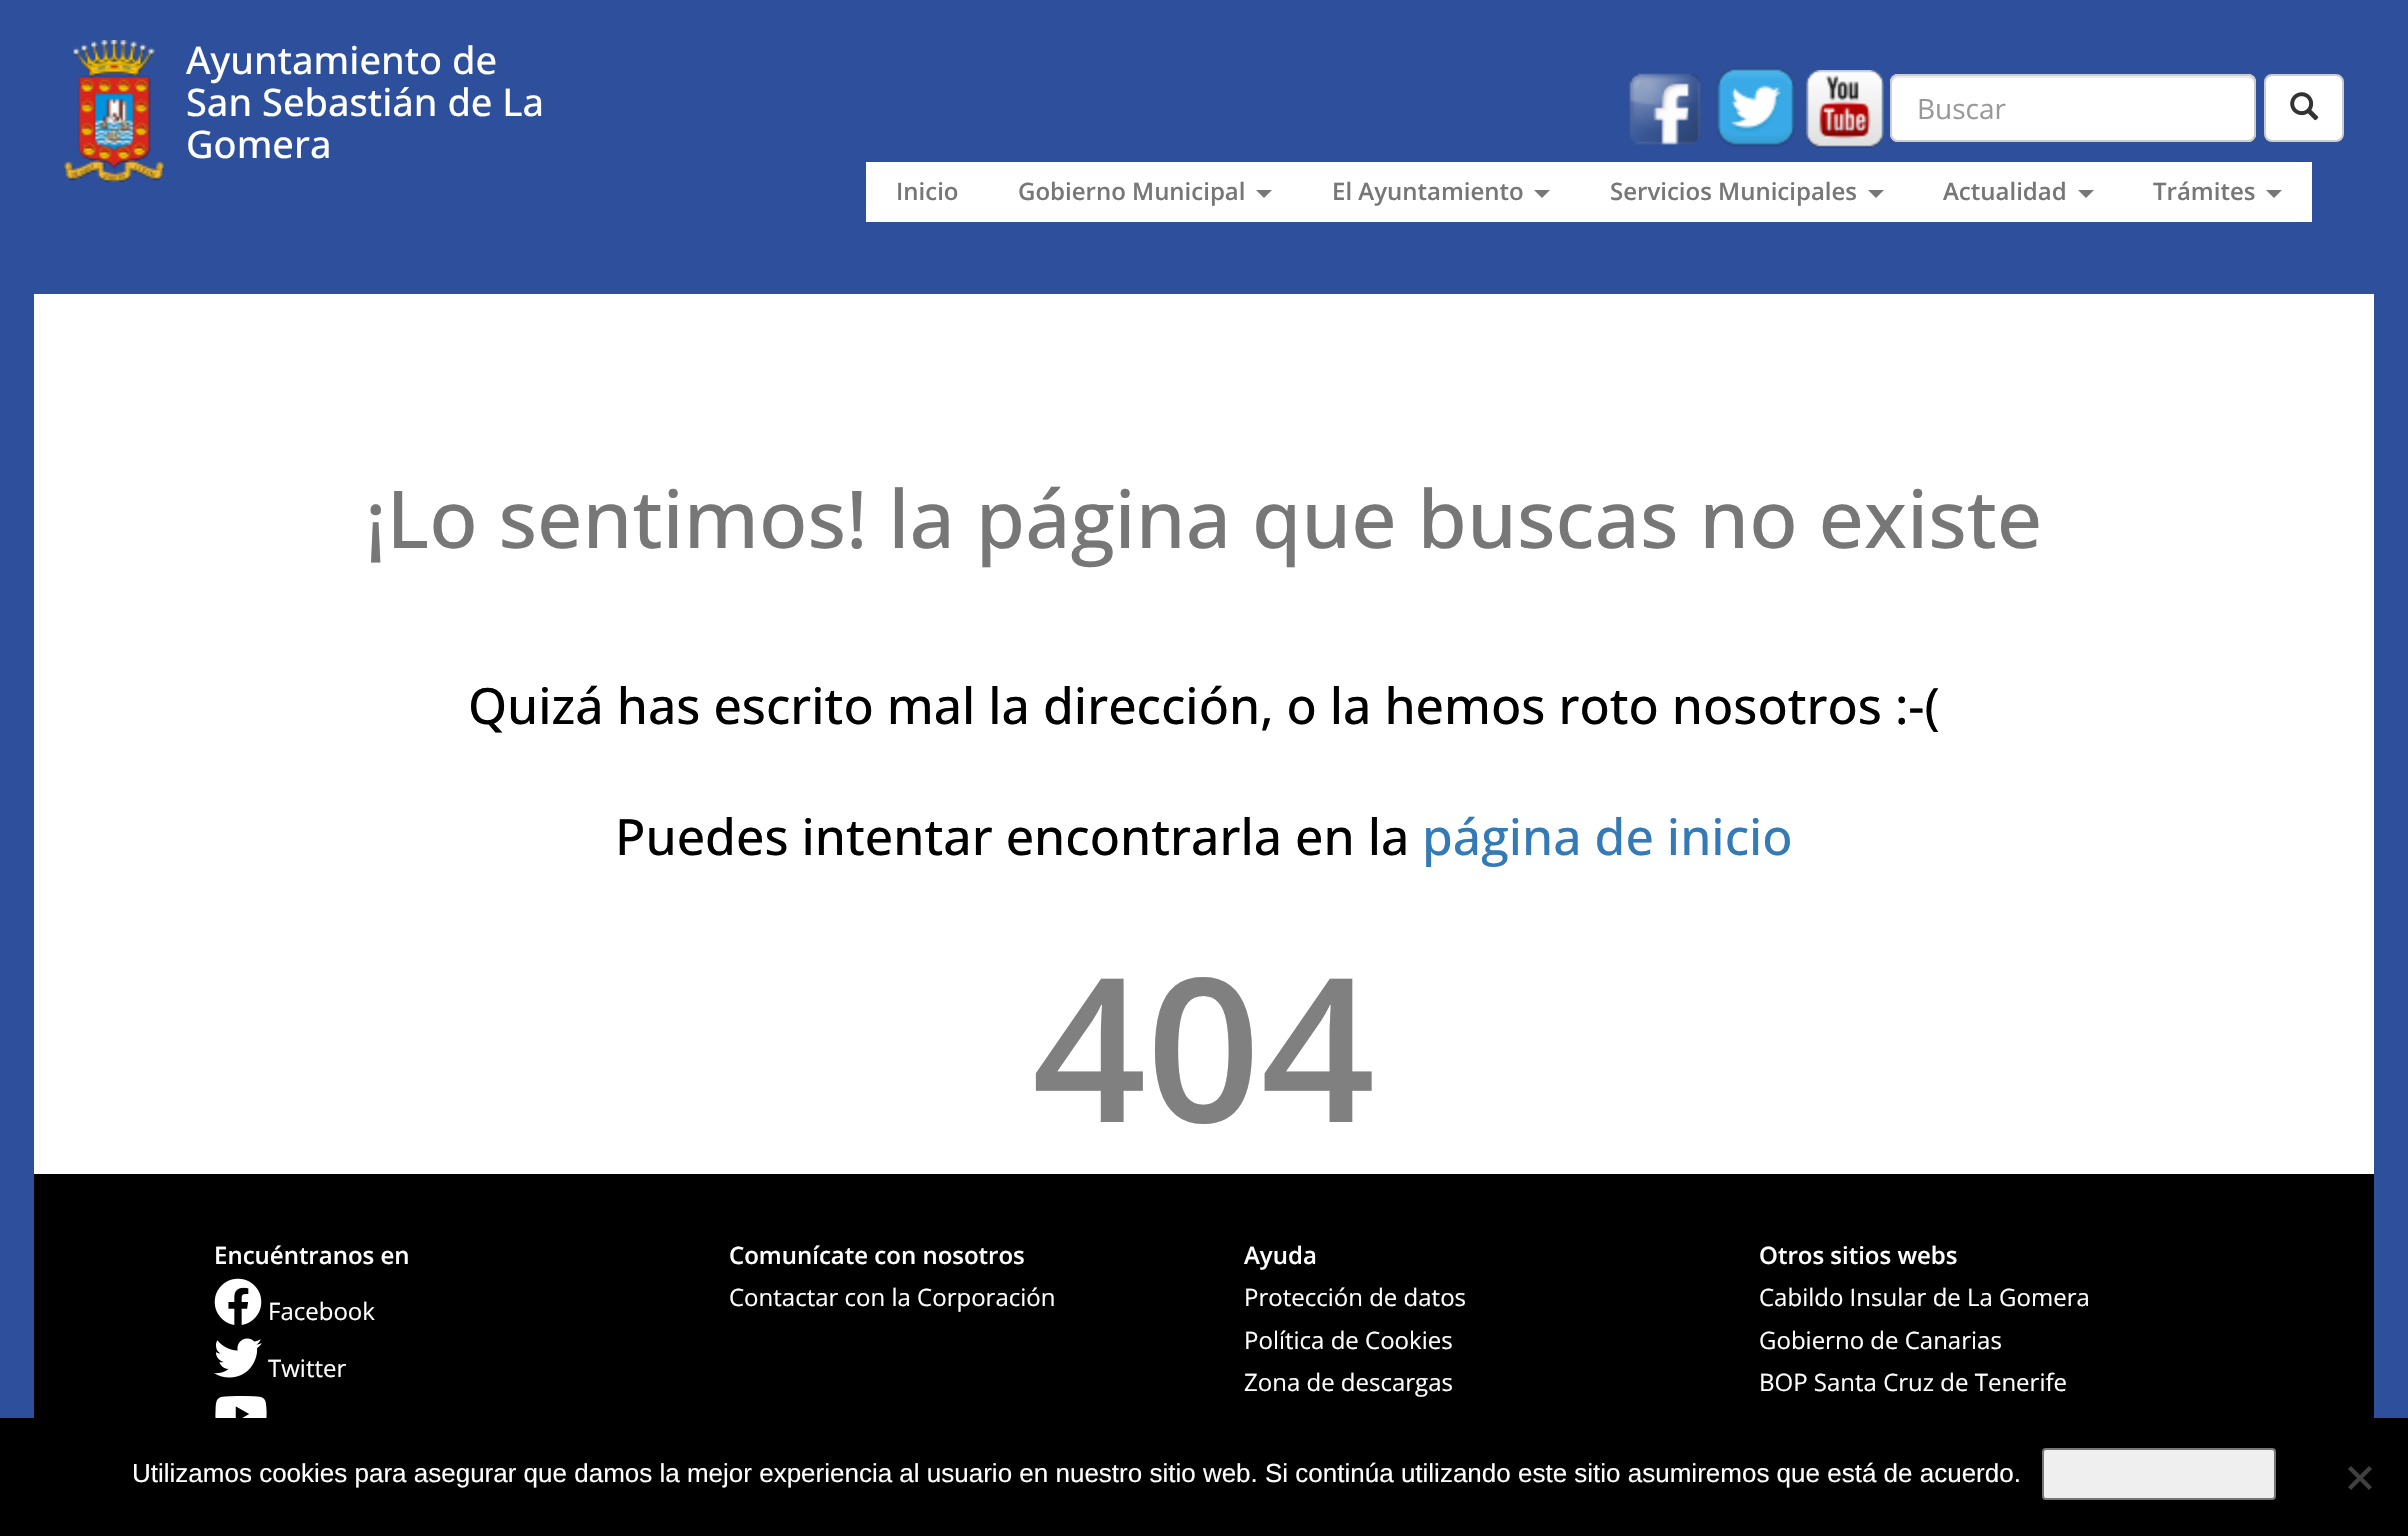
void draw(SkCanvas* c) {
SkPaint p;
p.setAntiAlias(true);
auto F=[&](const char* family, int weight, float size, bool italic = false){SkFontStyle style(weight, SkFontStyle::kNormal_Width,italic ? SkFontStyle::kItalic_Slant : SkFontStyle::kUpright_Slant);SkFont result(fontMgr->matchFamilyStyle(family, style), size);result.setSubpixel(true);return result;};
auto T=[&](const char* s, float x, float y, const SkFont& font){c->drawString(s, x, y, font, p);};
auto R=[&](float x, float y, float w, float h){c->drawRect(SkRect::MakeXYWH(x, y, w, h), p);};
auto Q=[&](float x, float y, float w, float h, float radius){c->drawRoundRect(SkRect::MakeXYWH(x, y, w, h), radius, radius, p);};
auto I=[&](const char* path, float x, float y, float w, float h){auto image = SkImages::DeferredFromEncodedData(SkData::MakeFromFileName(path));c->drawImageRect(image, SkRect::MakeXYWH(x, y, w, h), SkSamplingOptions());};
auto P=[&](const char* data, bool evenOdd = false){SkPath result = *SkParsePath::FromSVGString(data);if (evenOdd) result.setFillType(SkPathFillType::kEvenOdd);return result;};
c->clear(0xff2e509c);
I("1.png",64,40,100,142);
auto f1 = F("Open Sans",500,38);
p.setColor(0xffffffff);
T("Ayuntamiento de",186,74,f1);
T("San Sebastián de La",186,116,f1);
T("Gomera",186,158,f1);
I("2.png",1629,73,72,72);
I("3.png",1716,67,80,81);
I("4.png",1806,70,78,78);
Q(1890,74,366,68,8);
p.setColor(0xffececec);
c->drawPath(P("M1898 78h350c3 0 6 3 6 6v-2c0-3-3-6-6-6h-350c-3 0-6 3-6 6v2c0-3 3-6 6-6z"),p);
p.setStroke(true);
p.setStrokeWidth(2);
p.setColor(0xffcccccc);
c->drawRoundRect(SkRect::MakeXYWH(1891,75,364,66),7,7,p);
auto f2 = F("Open Sans",400,28);
p.setStroke(false);
p.setColor(0xff999999);
T("Buscar",1917,119,f2);
p.setColor(0xffffffff);
c->drawRoundRect(SkRect::MakeXYWH(2265,75,78,66),7,7,p);
p.setStroke(true);
p.setColor(0xffcccccc);
c->drawRoundRect(SkRect::MakeXYWH(2265,75,78,66),7,7,p);
I("5.png",2290,92,29,29);
p.setStroke(false);
p.setColor(0xffffffff);
R(866,162,1446,60);
auto f3 = F("Open Sans",600,24);
p.setColor(0xff777777);
T("Inicio",896,200,f3);
T("Gobierno Municipal",1018,200,f3);
c->drawPath(P("M1256 190h16l-8 8z"),p);
T("El Ayuntamiento",1332,200,f3);
c->drawPath(P("M1534 190h16l-8 8z"),p);
T("Servicios Municipales",1610,200,f3);
c->drawPath(P("M1868 190h16l-8 8z"),p);
T("Actualidad",1943,200,f3);
c->drawPath(P("M2078 190h16l-8 8z"),p);
T("Trámites",2153,200,f3);
c->drawPath(P("M2266 190h16l-8 8z"),p);
p.setColor(0xffffffff);
R(34,294,2340,880);
auto f4 = F("Open Sans",500,80);
p.setColor(0xff777777);
T("¡Lo sentimos! la página que buscas no existe",365,548,f4);
auto f5 = F("Open Sans",500,50);
p.setColor(0xff000000);
T("Quizá has escrito mal la dirección, o la hemos roto nosotros :-(",468,724,f5);
T("Puedes intentar encontrarla en la",615,855,f5);
p.setColor(0xff337ab7);
T("página de inicio",1422,855,f5);
auto f6 = F("Open Sans",600,200);
p.setColor(0xff808080);
T("404",1032,1122,f6);
p.setColor(0xff000000);
R(34,1174,2340,244);
p.setColor(0xffffffff);
T("Encuéntranos en",214,1264,f3);
I("6.png",214,1278,48,47);
auto f7 = F("Open Sans",400,24);
T("Facebook",268,1320,f7);
I("7.png",214,1338,48,40);
T("Twitter",268,1377,f7);
I("8.png",215,1396,52,22);
T("Comunícate con nosotros",729,1264,f3);
T("Contactar con la Corporación",729,1306,f7);
T("Ayuda",1244,1264,f3);
T("Protección de datos",1244,1306,f7);
T("Política de Cookies",1244,1349,f7);
T("Zona de descargas",1244,1391,f7);
T("Otros sitios webs",1759,1264,f3);
T("Cabildo Insular de La Gomera",1759,1306,f7);
T("Gobierno de Canarias",1759,1349,f7);
T("BOP Santa Cruz de Tenerife",1759,1391,f7);
p.setColor(0xff000000);
R(0,1418,2408,118);
auto f8 = F("Liberation Sans",400,26);
p.setColor(0xffffffff);
T("Utilizamos cookies para asegurar que damos la mejor experiencia al usuario en nuestro sitio web. Si continúa utilizando este sitio asumiremos que está de acuerdo.",132,1482,f8);
p.setColor(0xffefefef);
c->drawRoundRect(SkRect::MakeXYWH(2043,1449,232,50),3,3,p);
p.setStroke(true);
p.setColor(0xff767676);
c->drawRoundRect(SkRect::MakeXYWH(2043,1449,232,50),3,3,p);
p.setStroke(false);
p.setColor(0xff404040);
c->drawPath(P("M2369 1466l3 3l-21 21l-3-3z"),p);
c->drawPath(P("M2348 1469l3-3l21 21l-3 3z"),p);
}
